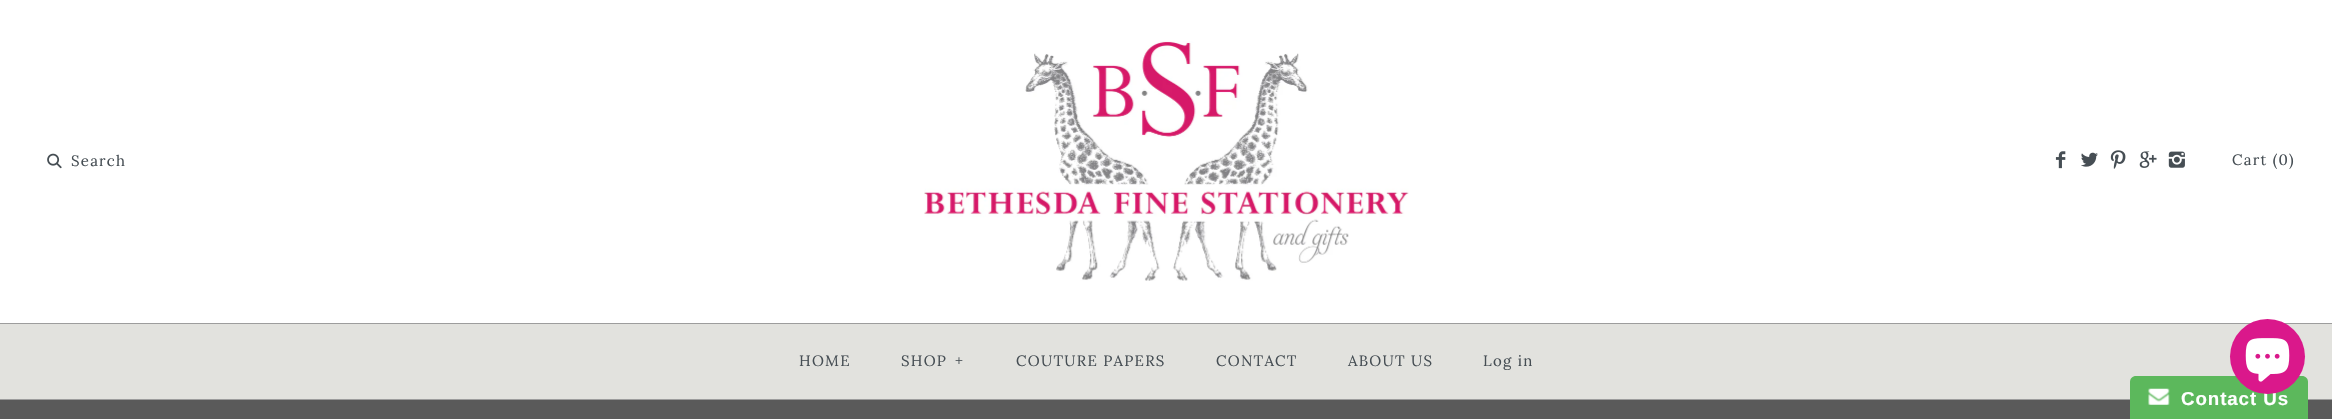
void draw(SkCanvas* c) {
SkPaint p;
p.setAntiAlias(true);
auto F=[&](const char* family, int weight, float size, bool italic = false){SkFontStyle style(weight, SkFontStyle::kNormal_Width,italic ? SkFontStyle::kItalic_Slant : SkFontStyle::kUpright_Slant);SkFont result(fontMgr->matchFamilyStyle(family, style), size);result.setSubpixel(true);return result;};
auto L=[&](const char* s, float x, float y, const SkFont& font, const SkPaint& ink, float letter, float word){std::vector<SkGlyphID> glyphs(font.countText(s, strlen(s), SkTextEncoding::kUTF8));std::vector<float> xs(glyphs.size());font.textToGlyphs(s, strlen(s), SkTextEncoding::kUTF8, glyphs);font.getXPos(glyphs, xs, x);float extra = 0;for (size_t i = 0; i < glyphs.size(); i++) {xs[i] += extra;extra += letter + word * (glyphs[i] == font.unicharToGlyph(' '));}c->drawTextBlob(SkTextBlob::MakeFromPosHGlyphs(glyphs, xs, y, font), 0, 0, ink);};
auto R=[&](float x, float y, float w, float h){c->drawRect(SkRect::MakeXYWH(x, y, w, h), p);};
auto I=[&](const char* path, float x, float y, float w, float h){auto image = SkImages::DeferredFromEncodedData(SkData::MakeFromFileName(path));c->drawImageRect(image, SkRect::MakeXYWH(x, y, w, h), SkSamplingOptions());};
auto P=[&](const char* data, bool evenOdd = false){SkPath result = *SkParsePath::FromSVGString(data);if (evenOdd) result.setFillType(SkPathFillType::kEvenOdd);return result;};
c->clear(0xffffffff);
I("1.png",924,41,485,240);
I("2.png",47,153,15,16);
auto f1 = F("Lora",400,15);
p.setColor(0xff464e54);
L("Search",71,166,f1,p,1.25,0);
I("3.png",2055,151,11,18);
I("4.png",2081,152,17,15);
I("5.png",2110,150,16,19);
I("6.png",2139,151,18,17);
I("7.png",2168,151,17,17);
L("Cart (0)",2232,165,f1,p,1.25,0);
p.setColor(0xff9d9d9d);
R(0,399,2332,1);
p.setColor(0xffe2e2de);
R(0,324,2332,75);
p.setColor(0xff9d9d9d);
R(0,323,2332,1);
p.setColor(0xff464e54);
L("HOME",799,366,f1,p,1.25,0);
L("SHOP",901,366,f1,p,1.25,0);
L("+",955,366,f1,p,1.25,0);
L("COUTURE PAPERS",1016,366,f1,p,1.25,0);
L("CONTACT",1216,366,f1,p,1.25,0);
L("ABOUT US",1348,366,f1,p,1.25,0);
L("Log in",1483,366,f1,p,1.25,0);
p.setColor(0xff5a5a5a);
R(0,400,2332,19);
p.setColor(0xff5cb85c);
c->drawPath(P("M2136 376h166c3.5 0 6 2.5 6 6v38h-178v-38c0-3.5 2.5-6 6-6z"),p);
auto f2 = F("Liberation Sans",700,18.75);
p.setColor(0xffffffff);
L("Contact Us",2181,405,f2,p,.9,0);
p.setColor(0xffda188b);
c->drawCircle(2267.5,356.5,37.5,p);
I("8.png",2245,338,45,44);
I("9.png",2148,388,22,17);
}
